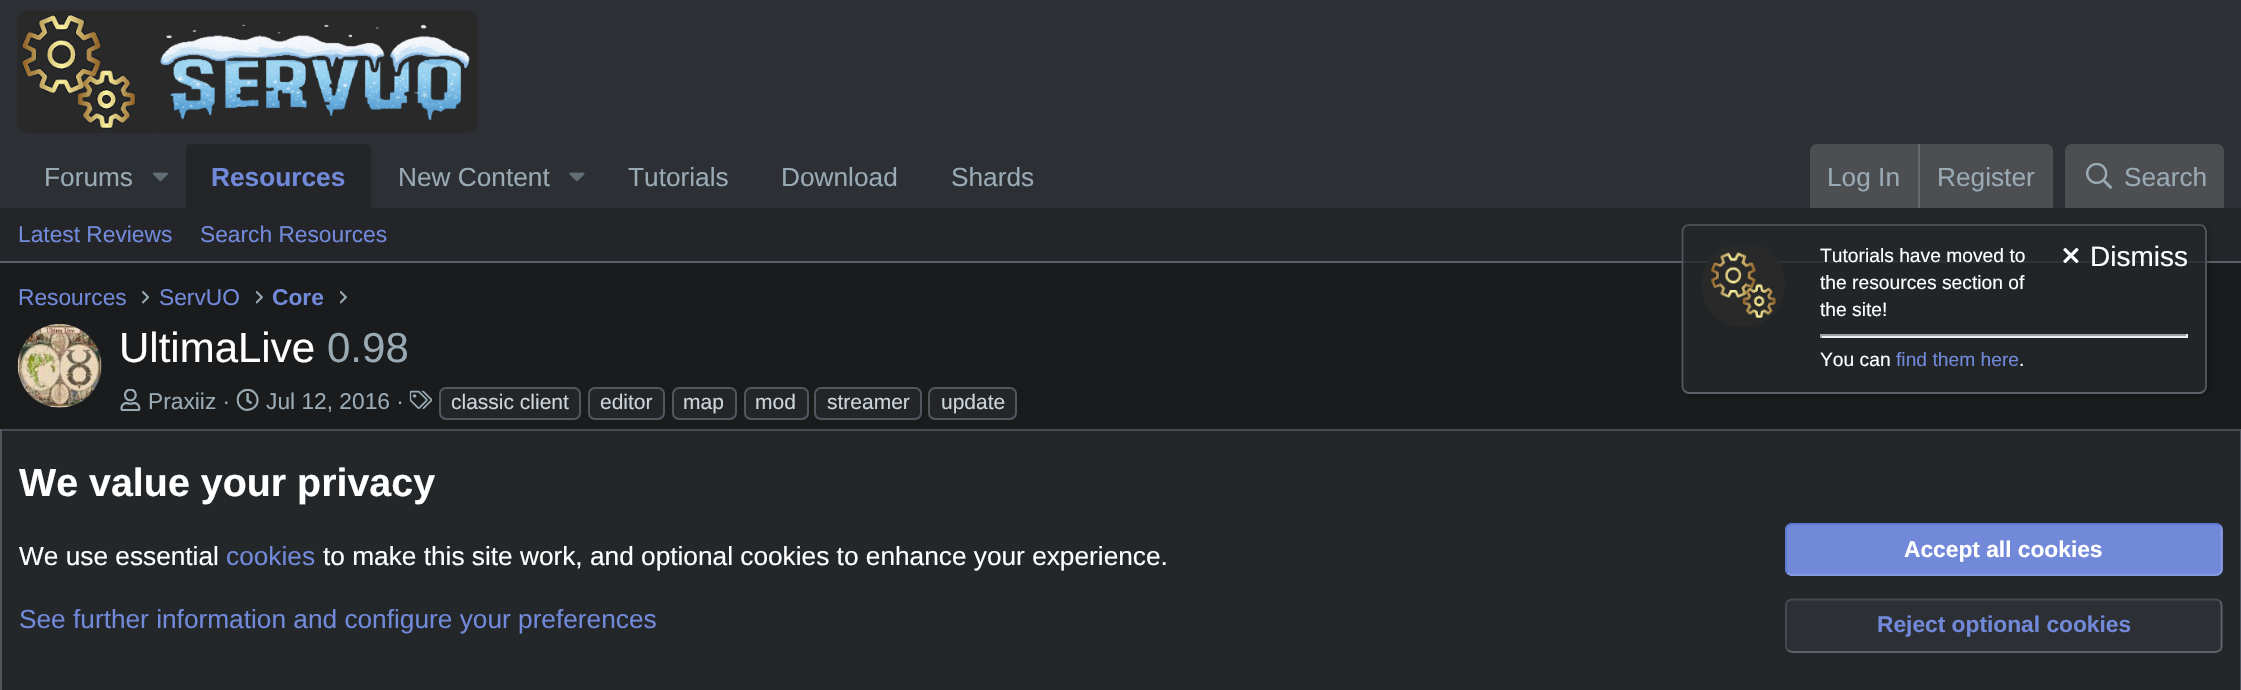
void draw(SkCanvas* c) {
SkPaint p;
p.setAntiAlias(true);
auto F=[&](const char* family, int weight, float size, bool italic = false){SkFontStyle style(weight, SkFontStyle::kNormal_Width,italic ? SkFontStyle::kItalic_Slant : SkFontStyle::kUpright_Slant);SkFont result(fontMgr->matchFamilyStyle(family, style), size);result.setSubpixel(true);return result;};
auto T=[&](const char* s, float x, float y, const SkFont& font){c->drawString(s, x, y, font, p);};
auto R=[&](float x, float y, float w, float h){c->drawRect(SkRect::MakeXYWH(x, y, w, h), p);};
auto Q=[&](float x, float y, float w, float h, float radius){c->drawRoundRect(SkRect::MakeXYWH(x, y, w, h), radius, radius, p);};
auto I=[&](const char* path, float x, float y, float w, float h){auto image = SkImages::DeferredFromEncodedData(SkData::MakeFromFileName(path));c->drawImageRect(image, SkRect::MakeXYWH(x, y, w, h), SkSamplingOptions());};
auto P=[&](const char* data, bool evenOdd = false){SkPath result = *SkParsePath::FromSVGString(data);if (evenOdd) result.setFillType(SkPathFillType::kEvenOdd);return result;};
c->clear(0xff191b1d);
p.setColor(0xff2c2f33);
R(0,0,2241,208);
I("1.png",17,10,461,123);
auto f1 = F("Liberation Sans",400,26.25);
p.setColor(0xff99aab5);
T("Forums",44,186,f1);
I("2.png",152,172,16,10);
p.setColor(0xff232528);
c->drawPath(P("M190 144h177c2 0 4 2 4 4v60h-185v-60c0-2 2-4 4-4z"),p);
auto f2 = F("Liberation Sans",700,26.25);
p.setColor(0xff7289da);
T("Resources",211,186,f2);
p.setColor(0xff99aab5);
T("New Content",398,186,f1);
I("3.png",569,172,16,10);
T("Tutorials",628,186,f1);
T("Download",781,186,f1);
T("Shards",951,186,f1);
p.setColor(0xff4c4e52);
c->drawPath(P("M1817 144h229c4 0 7 3 7 7v57h-243v-57c0-4 3-7 7-7z"),p);
p.setColor(0xff99aab5);
T("Log In",1827,186,f1);
p.setColor(0xff67696c);
R(1918,144,2,64);
p.setColor(0xff99aab5);
T("Register",1937,186,f1);
p.setColor(0xff4c4e52);
c->drawPath(P("M2072 144h145c4 0 7 3 7 7v57h-159v-57c0-4 3-7 7-7z"),p);
I("4.png",2086,163,26,26);
p.setColor(0xff99aab5);
T("Search",2124,186,f1);
p.setColor(0xff232528);
R(0,208,2241,53);
p.setColor(0xff5b616a);
R(0,261,2241,2);
auto f3 = F("Liberation Sans",400,22.75);
p.setColor(0xff7289da);
T("Latest Reviews",18,242,f3);
T("Search Resources",200,242,f3);
T("Resources",18,305,f3);
I("5.png",142,290,7,14);
T("ServUO",159,305,f3);
I("6.png",256,290,7,14);
auto f4 = F("Liberation Sans",700,22.75);
T("Core",272,305,f4);
I("6.png",340,290,7,14);
p.setColor(0xff2c2f33);
c->drawCircle(60,366,42,p);
I("7.png",17,324,85,84);
auto f5 = F("Liberation Sans",400,42);
p.setColor(0xffffffff);
T("UltimaLive",119,362,f5);
p.setColor(0xff99aab5);
T("0.98",327,362,f5);
I("8.png",120,388,21,23);
T("Praxiiz ·",148,409,f3);
I("9.png",236,388,23,23);
T("Jul 12, 2016 ·",266,409,f3);
I("10.png",409,390,23,19);
p.setColor(0xff232528);
c->drawRoundRect(SkRect::MakeXYWH(440,388,140,31),6,6,p);
p.setStroke(true);
p.setStrokeWidth(2);
p.setColor(0xff52575f);
c->drawRoundRect(SkRect::MakeXYWH(440,388,140,31),6,6,p);
auto f6 = F("Liberation Sans",400,21);
p.setStroke(false);
p.setColor(0xffccd5da);
T("classic client",451,409,f6);
p.setColor(0xff232528);
c->drawRoundRect(SkRect::MakeXYWH(589,388,75,31),6,6,p);
p.setStroke(true);
p.setColor(0xff52575f);
c->drawRoundRect(SkRect::MakeXYWH(589,388,75,31),6,6,p);
p.setStroke(false);
p.setColor(0xffccd5da);
T("editor",600,409,f6);
p.setColor(0xff232528);
c->drawRoundRect(SkRect::MakeXYWH(673,388,63,31),6,6,p);
p.setStroke(true);
p.setColor(0xff52575f);
c->drawRoundRect(SkRect::MakeXYWH(673,388,63,31),6,6,p);
p.setStroke(false);
p.setColor(0xffccd5da);
T("map",683,409,f6);
p.setColor(0xff232528);
c->drawRoundRect(SkRect::MakeXYWH(745,388,63,31),6,6,p);
p.setStroke(true);
p.setColor(0xff52575f);
c->drawRoundRect(SkRect::MakeXYWH(745,388,63,31),6,6,p);
p.setStroke(false);
p.setColor(0xffccd5da);
T("mod",755,409,f6);
p.setColor(0xff232528);
c->drawRoundRect(SkRect::MakeXYWH(815,388,106,31),6,6,p);
p.setStroke(true);
p.setColor(0xff52575f);
c->drawRoundRect(SkRect::MakeXYWH(815,388,106,31),6,6,p);
p.setStroke(false);
p.setColor(0xffccd5da);
T("streamer",827,409,f6);
p.setColor(0xff232528);
c->drawRoundRect(SkRect::MakeXYWH(929,388,87,31),6,6,p);
p.setStroke(true);
p.setColor(0xff52575f);
c->drawRoundRect(SkRect::MakeXYWH(929,388,87,31),6,6,p);
p.setStroke(false);
p.setColor(0xffccd5da);
T("update",941,409,f6);
c->save();
c->clipPath(P("M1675 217h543v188h-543zm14 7h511c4 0 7 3 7 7v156c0 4-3 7-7 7h-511c-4 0-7-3-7-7v-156c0-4 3-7 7-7z",true),true);
p.setColor(0x40000000);
p.setMaskFilter(SkMaskFilter::MakeBlur(kNormal_SkBlurStyle, 2.5));
c->drawRoundRect(SkRect::MakeXYWH(1684,226,525,170),7,7,p);
p.setMaskFilter(nullptr);
c->restore();
p.setColor(0xcc23272a);
Q(1682,224,525,170,7);
p.setStroke(true);
p.setStrokeWidth(1.8);
p.setColor(0xff484d54);
c->drawPath(P("M1684.5 226.5c1-1 2.5-1.5 4.5-1.5h511c1.5 0 3 .5 4 1.5"),p);
p.setColor(0xff52575f);
c->drawPath(P("M2204 226.5c1 1.5 2 3 2 4.5v156c0 1.5-1 3-2 4"),p);
p.setColor(0xff5b616a);
c->drawPath(P("M2204 391c-1 1-2.5 2-4 2h-511c-2 0-3.5-1-4.5-2"),p);
p.setColor(0xff52575f);
c->drawPath(P("M1684.5 391c-1-1-2-2.5-2-4v-156c0-1.5 1-3 2-4.5"),p);
I("11.png",1701,244,84,83);
auto f7 = F("Liberation Sans",400,19.25);
p.setStroke(false);
p.setColor(0xffffffff);
T("Tutorials have moved to",1820,262,f7);
I("12.png",2063,247,16,17);
auto f8 = F("Liberation Sans",400,28);
T("Dismiss",2090,266,f8);
T("the resources section of",1820,289,f7);
T("the site!",1820,316,f7);
p.setColor(0xff9f9f9f);
R(1820,334,368,2);
p.setColor(0xffeeeeee);
R(2186,334,2,4);
R(1820,336,368,2);
p.setColor(0xff9f9f9f);
R(1820,334,2,4);
p.setColor(0xffffffff);
T("You can",1820,366,f7);
p.setColor(0xff7289da);
T("find them here",1896,366,f7);
p.setColor(0xffffffff);
T(".",2019,366,f7);
p.setColor(0xff23272a);
R(2,431,2238,259);
p.setColor(0xff484d54);
R(0,429,2241,2);
p.setColor(0xff52575f);
R(2240,429,1,261);
R(0,429,2,261);
auto f9 = F("Liberation Sans",700,39.4);
p.setColor(0xffffffff);
T("We value your privacy",19,496,f9);
T("We use essential",19,565,f1);
p.setColor(0xff7289da);
T("cookies",226,565,f1);
p.setColor(0xffffffff);
T("to make this site work, and optional cookies to enhance your experience.",323,565,f1);
p.setColor(0xff7289da);
T("See further information and configure your preferences",19,628,f1);
Q(1785,523,438,53,7);
p.setStroke(true);
p.setColor(0xff869adf);
c->drawPath(P("M2220 526c1 1 1.5 2.5 1.5 4v39c0 1.5-.5 3-1.5 4c-1.5 1-3 2-4.5 2h-423.5c-1.5 0-3-1-4.5-2"),p);
p.setColor(0xff5e78d5);
c->drawPath(P("M1787.5 573c-1-1-1.5-2.5-1.5-4v-39c0-1.5 .5-3 1.5-4c1.5-1 3-2 4.5-2h423.5c1.5 0 3 1 4.5 2"),p);
p.setStroke(false);
p.setColor(0xffffffff);
T("Accept all cookies",1904,557,f4);
p.setColor(0xff2c2f33);
Q(1785,599,438,54,7);
p.setStroke(true);
p.setColor(0xff5e646c);
c->drawPath(P("M2220 601c1 1.5 1.5 3 1.5 4.5v40.5c0 1.5-.5 3-1.5 4c-1.5 1-3 2-4.5 2h-423.5c-1.5 0-3-1-4.5-2"),p);
p.setColor(0xff464b51);
c->drawPath(P("M1787.5 650c-1-1-1.5-2.5-1.5-4v-40.5c0-1.5 .5-3 1.5-4.5c1.5-1 3-1.5 4.5-1.5h423.5c1.5 0 3 .5 4.5 1.5"),p);
p.setStroke(false);
p.setColor(0xff7289da);
T("Reject optional cookies",1877,632,f4);
}
